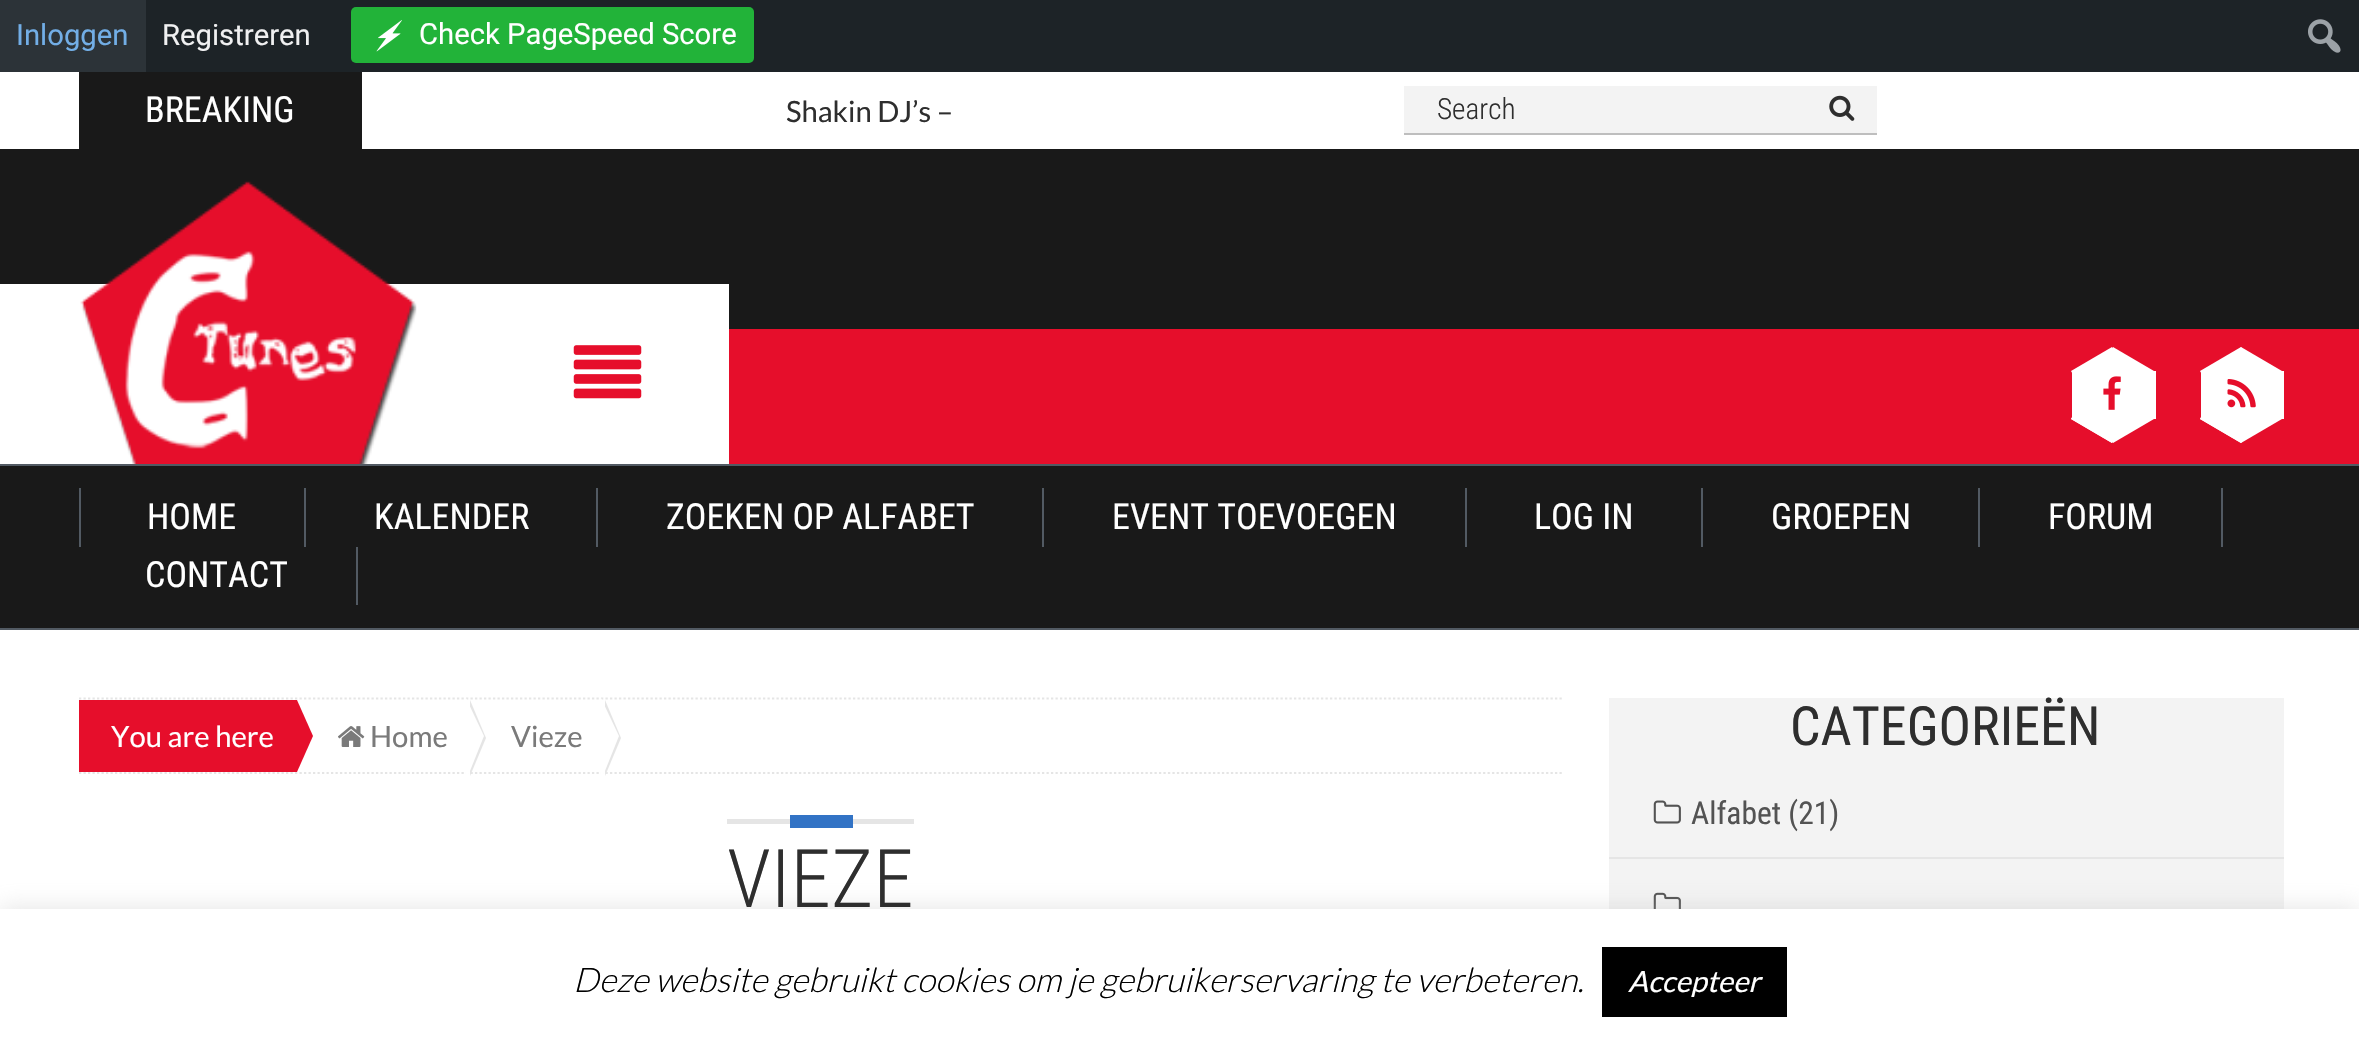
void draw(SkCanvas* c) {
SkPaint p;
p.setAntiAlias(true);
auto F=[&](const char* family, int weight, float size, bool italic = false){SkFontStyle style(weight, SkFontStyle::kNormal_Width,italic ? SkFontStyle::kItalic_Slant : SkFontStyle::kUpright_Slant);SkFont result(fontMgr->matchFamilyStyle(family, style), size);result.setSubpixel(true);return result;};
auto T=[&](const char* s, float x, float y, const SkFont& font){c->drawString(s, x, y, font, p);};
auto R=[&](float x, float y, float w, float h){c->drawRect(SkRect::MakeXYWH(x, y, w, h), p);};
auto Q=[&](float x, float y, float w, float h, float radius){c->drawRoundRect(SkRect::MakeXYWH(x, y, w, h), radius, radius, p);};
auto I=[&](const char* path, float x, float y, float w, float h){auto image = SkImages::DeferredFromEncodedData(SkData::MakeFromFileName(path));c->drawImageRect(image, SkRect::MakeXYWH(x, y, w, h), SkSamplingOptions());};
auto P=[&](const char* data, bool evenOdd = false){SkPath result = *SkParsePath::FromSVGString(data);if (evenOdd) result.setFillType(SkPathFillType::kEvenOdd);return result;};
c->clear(0xffffffff);
c->save();
c->clipPath(P("M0 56h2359v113h-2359zm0 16h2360v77h-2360z",true),true);
p.setColor(0x57000000);
p.setMaskFilter(SkMaskFilter::MakeBlur(kNormal_SkBlurStyle, 5.5));
c->drawRect(SkRect::MakeXYWH(0,74,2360,77),p);
p.setMaskFilter(nullptr);
c->restore();
p.setColor(0xff1d2327);
R(146,0,2213,72);
p.setColor(0xff2c3338);
R(0,0,146,72);
auto f1 = F("Roboto",400,29.25);
p.setColor(0xff72aee6);
T("Inloggen",16,45,f1);
p.setColor(0xfff0f0f1);
T("Registreren",162,45,f1);
p.setColor(0xff22b339);
Q(351,7,403,56,5);
I("1.png",376,20,26,32);
p.setColor(0xffffffff);
T("Check PageSpeed Score",419,44,f1);
I("2.png",2308,19,33,34);
p.setColor(0xfff3f3f3);
R(1609,698,675,211);
I("10.png",1653,892,28,17);
p.setColor(0x4dacabab);
p.setMaskFilter(SkMaskFilter::MakeBlur(kNormal_SkBlurStyle, 11));
c->drawRect(SkRect::MakeXYWH(0,907,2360,135),p);
p.setMaskFilter(nullptr);
p.setColor(0xffffffff);
R(0,909,2359,133);
auto f2 = F("Lato",300,33.75,true);
p.setColor(0xff000000);
T("Deze website gebruikt cookies om je gebruikerservaring te verbeteren.",573,992,f2);
R(1602,947,185,70);
auto f3 = F("Lato",400,29.25,true);
p.setColor(0xffffffff);
T("Accepteer",1628,992,f3);
p.setColor(0xff191919);
R(79,72,283,77);
auto f4 = F("Roboto Condensed",400,36);
p.setColor(0xffffffff);
T("BREAKING",145,122,f4);
auto f5 = F("Lato",400,29.25);
p.setColor(0xff2e2e2e);
T("Shakin DJ’s –",786,122,f5);
p.setColor(0xfff3f3f3);
R(1404,86,473,47);
p.setColor(0xffbebebe);
R(1404,133,473,2);
auto f6 = F("Roboto Condensed",300,29.25);
p.setColor(0xff2e2e2e);
T("Search",1437,119,f6);
I("3.png",1829,95,26,26);
p.setColor(0xff191919);
R(0,149,2359,180);
p.setColor(0xffe60e2b);
R(729,329,1630,135);
p.setColor(0xffffffff);
R(0,284,729,45);
I("4.png",80,181,337,283);
I("5.png",573,345,69,54);
R(2072,371,84,48);
c->drawPath(P("M2112 347l-41 24l42 72l41-24z"),p);
c->drawPath(P("M2071 419l42-72l41 24l-42 72z"),p);
c->drawPath(P("M2071 419l41 24l29-49h-55z"),p);
I("6.png",2103,376,18,34);
R(2201,371,83,48);
c->drawPath(P("M2241 347l-41 24l41 72l41-24z"),p);
c->drawPath(P("M2200 419l41-72l41 24l-41 72z"),p);
c->drawPath(P("M2200 419l41 24l28-49h-55z"),p);
I("7.png",2227,379,29,29);
p.setColor(0xff191919);
R(0,466,2359,162);
p.setColor(0xff525a63);
R(0,464,2359,2);
R(0,628,2359,2);
R(304,488,2,59);
R(79,488,2,59);
p.setColor(0xffffffff);
T("HOME",147,529,f4);
p.setColor(0xff525a63);
R(596,488,2,59);
p.setColor(0xffffffff);
T("KALENDER",374,529,f4);
p.setColor(0xff525a63);
R(1042,488,2,59);
p.setColor(0xffffffff);
T("ZOEKEN OP ALFABET",666,529,f4);
p.setColor(0xff525a63);
R(1465,488,2,59);
p.setColor(0xffffffff);
T("EVENT TOEVOEGEN",1112,529,f4);
p.setColor(0xff525a63);
R(1701,488,2,59);
p.setColor(0xffffffff);
T("LOG IN",1534,529,f4);
p.setColor(0xff525a63);
R(1978,488,2,59);
p.setColor(0xffffffff);
T("GROEPEN",1771,529,f4);
p.setColor(0xff525a63);
R(2221,488,2,59);
p.setColor(0xffffffff);
T("FORUM",2048,529,f4);
p.setColor(0xff525a63);
R(356,547,2,58);
p.setColor(0xffffffff);
T("CONTACT",145,587,f4);
p.setStroke(true);
p.setStrokeWidth(2.2);
p.setColor(0xffe5e5e5);
p.setPathEffect(SkDashPathEffect::Make({{2.25f,2.25f}}, 0));
c->drawPath(P("M79 698.5h1485"),p);
p.setPathEffect(nullptr);
p.setPathEffect(SkDashPathEffect::Make({{2.25f,2.25f}}, 0));
c->drawPath(P("M79 773h1485"),p);
p.setPathEffect(nullptr);
p.setStroke(false);
p.setColor(0xffe60e2b);
R(79,700,218,72);
p.setColor(0xffffffff);
T("You are here",111,747,f5);
p.setColor(0xffe60e2b);
c->drawPath(P("M297 772v-72l16 36z"),p);
p.setColor(0xffe5e5e5);
c->drawPath(P("M470 776v-76l16 38z"),p);
p.setColor(0xffffffff);
c->drawPath(P("M466 781v-83l18 38z"),p);
I("8.png",338,726,27,21);
p.setColor(0xff7a7a7a);
T("Home",370,747,f5);
p.setColor(0xffe5e5e5);
c->drawPath(P("M605 776v-76l16 38z"),p);
p.setColor(0xffffffff);
c->drawPath(P("M601 781v-83l18 38z"),p);
p.setColor(0xff7a7a7a);
T("Vieze",511,747,f5);
p.setColor(0xffe5e5e5);
R(727,819,187,5);
p.setColor(0xff3273c5);
R(790,815,63,13);
auto f7 = F("Roboto Condensed",300,81);
p.setColor(0xff2e2e2e);
T("VIEZE",727,907,f7);
auto f8 = F("Roboto Condensed",400,54);
T("CATEGORIEËN",1790,745,f8);
p.setColor(0xffe5e5e5);
R(1609,857,675,2);
I("9.png",1653,800,28,24);
auto f9 = F("Roboto Condensed",400,31.5);
p.setColor(0xff535353);
T("Alfabet (21)",1691,824,f9);
}
